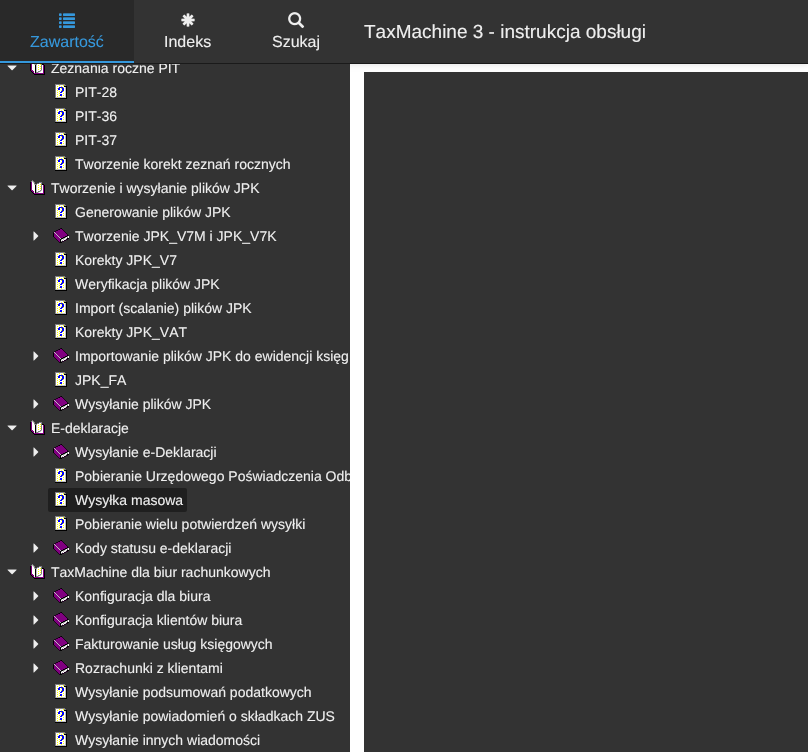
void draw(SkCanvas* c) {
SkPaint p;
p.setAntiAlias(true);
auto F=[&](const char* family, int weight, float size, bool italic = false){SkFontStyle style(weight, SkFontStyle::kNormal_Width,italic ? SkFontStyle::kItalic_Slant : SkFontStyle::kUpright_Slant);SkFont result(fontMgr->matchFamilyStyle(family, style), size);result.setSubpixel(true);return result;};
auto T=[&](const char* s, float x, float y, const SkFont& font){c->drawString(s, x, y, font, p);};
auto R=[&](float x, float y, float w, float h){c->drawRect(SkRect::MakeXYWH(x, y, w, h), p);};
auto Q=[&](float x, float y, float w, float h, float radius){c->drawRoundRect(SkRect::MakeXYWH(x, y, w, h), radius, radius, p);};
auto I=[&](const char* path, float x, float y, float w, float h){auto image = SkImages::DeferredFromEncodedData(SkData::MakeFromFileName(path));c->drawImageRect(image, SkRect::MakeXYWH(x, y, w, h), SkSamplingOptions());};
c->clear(0xffffffff);
p.setColor(0xff333333);
R(364,72,444,680);
p.setColor(0x1a000000);
p.setMaskFilter(SkMaskFilter::MakeBlur(kNormal_SkBlurStyle, 2.5));
c->drawRect(SkRect::MakeXYWH(0,1,808,64),p);
p.setMaskFilter(nullptr);
p.setColor(0xff333333);
R(350,0,458,63);
p.setColor(0xff1a1a1a);
R(350,63,458,1);
auto f1 = F("Liberation Sans",400,19);
p.setColor(0xffeeeeee);
T("TaxMachine 3 - instrukcja obsługi",364,38,f1);
p.setColor(0xff333333);
R(0,0,350,752);
p.setColor(0xff1a1a1a);
R(0,63,350,1);
p.setColor(0xff292929);
R(0,0,134,61);
I("1.png",59,13,16,15);
auto f2 = F("Liberation Sans",400,16);
p.setColor(0xff3598dc);
T("Zawartość",30,47,f2);
R(0,61,134,2);
I("2.png",181,13,14,14);
p.setColor(0xffeeeeee);
T("Indeks",164,47,f2);
I("3.png",288,12,17,17);
T("Szukaj",272,47,f2);
I("4.png",7,65,10,6);
I("5.png",30,64,15,11);
c->save();
c->clipRect(SkRect::MakeXYWH(0,64,350,688));
auto f3 = F("Liberation Sans",400,14);
T("Zeznania roczne PIT",51,73,f3);
c->restore();
I("6.png",55,84,12,15);
T("PIT-28",75,97,f3);
I("6.png",55,108,12,15);
T("PIT-36",75,121,f3);
I("6.png",55,132,12,15);
T("PIT-37",75,145,f3);
I("6.png",55,156,12,15);
T("Tworzenie korekt zeznań rocznych",75,169,f3);
I("7.png",7,185,10,6);
I("8.png",30,180,15,15);
T("Tworzenie i wysyłanie plików JPK",51,193,f3);
I("6.png",55,204,12,15);
T("Generowanie plików JPK",75,217,f3);
I("9.png",33,231,6,10);
I("10.png",53,228,16,15);
T("Tworzenie JPK_V7M i JPK_V7K",75,241,f3);
I("6.png",55,252,12,15);
T("Korekty JPK_V7",75,265,f3);
I("6.png",55,276,12,15);
T("Weryfikacja plików JPK",75,289,f3);
I("6.png",55,300,12,15);
T("Import (scalanie) plików JPK",75,313,f3);
I("6.png",55,324,12,15);
T("Korekty JPK_VAT",75,337,f3);
I("9.png",33,351,6,10);
I("10.png",53,348,16,15);
T("Importowanie plików JPK do ewidencji księg",75,361,f3);
I("6.png",55,372,12,15);
T("JPK_FA",75,385,f3);
I("9.png",33,399,6,10);
I("10.png",53,396,16,15);
T("Wysyłanie plików JPK",75,409,f3);
I("7.png",7,425,10,6);
I("8.png",30,420,15,15);
T("E-deklaracje",51,433,f3);
I("9.png",33,447,6,10);
I("10.png",53,444,16,15);
T("Wysyłanie e-Deklaracji",75,457,f3);
I("6.png",55,468,12,15);
c->save();
c->clipRect(SkRect::MakeXYWH(0,64,350,688));
T("Pobieranie Urzędowego Poświadczenia Odb",75,481,f3);
c->restore();
p.setColor(0xff1f1f1f);
Q(48,488,139,24,2);
I("11.png",55,492,12,15);
p.setColor(0xffeeeeee);
T("Wysyłka masowa",75,505,f3);
I("6.png",55,516,12,15);
T("Pobieranie wielu potwierdzeń wysyłki",75,529,f3);
I("9.png",33,543,6,10);
I("10.png",53,540,16,15);
T("Kody statusu e-deklaracji",75,553,f3);
I("7.png",7,569,10,6);
I("8.png",30,564,15,15);
T("TaxMachine dla biur rachunkowych",51,577,f3);
I("9.png",33,591,6,10);
I("10.png",53,588,16,15);
T("Konfiguracja dla biura",75,601,f3);
I("9.png",33,615,6,10);
I("10.png",53,612,16,15);
T("Konfiguracja klientów biura",75,625,f3);
I("9.png",33,639,6,10);
I("10.png",53,636,16,15);
T("Fakturowanie usług księgowych",75,649,f3);
I("9.png",33,663,6,10);
I("10.png",53,660,16,15);
T("Rozrachunki z klientami",75,673,f3);
I("6.png",55,684,12,15);
T("Wysyłanie podsumowań podatkowych",75,697,f3);
I("6.png",55,708,12,15);
T("Wysyłanie powiadomień o składkach ZUS",75,721,f3);
I("6.png",55,732,12,15);
T("Wysyłanie innych wiadomości",75,745,f3);
}
